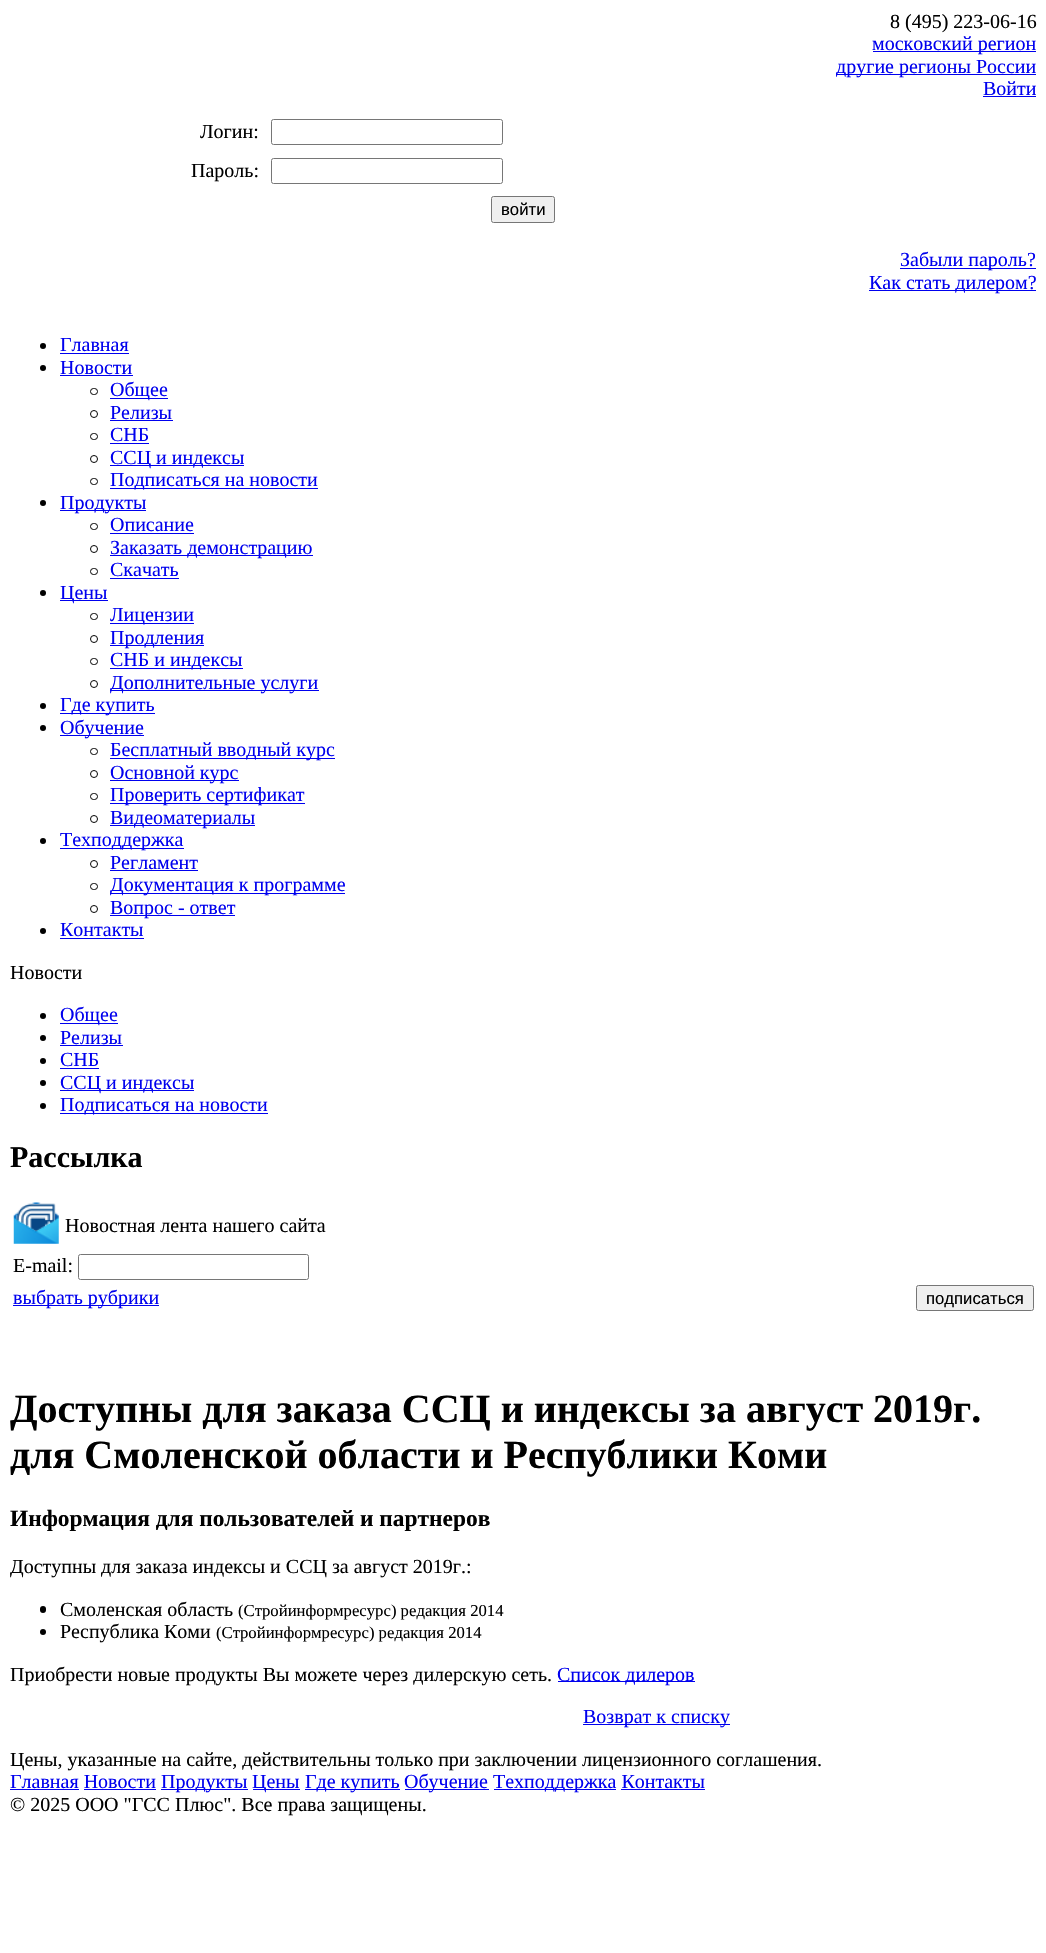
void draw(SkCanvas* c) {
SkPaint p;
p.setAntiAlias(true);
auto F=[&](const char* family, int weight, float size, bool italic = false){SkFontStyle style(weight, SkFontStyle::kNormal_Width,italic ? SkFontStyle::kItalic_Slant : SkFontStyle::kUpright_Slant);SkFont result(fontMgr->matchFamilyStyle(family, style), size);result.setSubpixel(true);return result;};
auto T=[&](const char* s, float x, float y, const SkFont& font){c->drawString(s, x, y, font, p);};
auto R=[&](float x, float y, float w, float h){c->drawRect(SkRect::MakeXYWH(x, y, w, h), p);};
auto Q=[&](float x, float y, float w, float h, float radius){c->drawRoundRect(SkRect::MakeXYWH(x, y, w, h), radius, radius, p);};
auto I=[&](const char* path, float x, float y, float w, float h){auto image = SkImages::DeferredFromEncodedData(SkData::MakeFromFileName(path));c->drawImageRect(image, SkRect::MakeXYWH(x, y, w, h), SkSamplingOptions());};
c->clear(0xffffffff);
auto f1 = F("Liberation Serif",400,20);
p.setColor(0xff000000);
T("8 (495) 223-06-16",890,28,f1);
p.setColor(0xff0000ee);
R(873,51,163,1);
T("московский регион",872,50,f1);
R(836,74,200,1);
T("другие регионы России",836,73,f1);
T("Войти",983,95,f1);
R(983,96,53,1);
p.setColor(0xff000000);
T("Логин:",200,138,f1);
p.setStroke(true);
p.setStrokeWidth(1);
p.setColor(0xff767676);
c->drawRoundRect(SkRect::MakeXYWH(271.5,119.5,231,25),2,2,p);
p.setStroke(false);
p.setColor(0xff000000);
T("Пароль:",191,177,f1);
p.setStroke(true);
p.setColor(0xff767676);
c->drawRoundRect(SkRect::MakeXYWH(271.5,158.5,231,25),2,2,p);
p.setStroke(false);
p.setColor(0xffefefef);
c->drawRoundRect(SkRect::MakeXYWH(491.5,196.5,63,26),2,2,p);
p.setStroke(true);
p.setColor(0xff767676);
c->drawRoundRect(SkRect::MakeXYWH(491.5,196.5,63,26),2,2,p);
auto f2 = F("Liberation Sans",400,16.7);
p.setStroke(false);
p.setColor(0xff000000);
T("войти",501,215,f2);
p.setColor(0xff0000ee);
R(900,268,136,1);
T("Забыли пароль?",900,266,f1);
R(869,290,167,1);
T("Как стать дилером?",869,289,f1);
p.setColor(0xff000000);
c->drawCircle(43,346,3,p);
p.setColor(0xff0000ee);
T("Главная",60,351,f1);
R(60,353,69,1);
p.setColor(0xff000000);
c->drawCircle(43,368,3,p);
p.setColor(0xff0000ee);
T("Новости",60,374,f1);
R(60,375,73,1);
p.setStroke(true);
p.setColor(0xff000000);
c->drawRoundRect(SkRect::MakeXYWH(90.5,388.5,7,6),3,3,p);
p.setStroke(false);
p.setColor(0xff0000ee);
R(110,398,58,1);
T("Общее",110,396,f1);
p.setStroke(true);
p.setColor(0xff000000);
c->drawCircle(94,414,3.5,p);
p.setStroke(false);
p.setColor(0xff0000ee);
T("Релизы",110,419,f1);
R(110,420,63,1);
p.setStroke(true);
p.setColor(0xff000000);
c->drawRoundRect(SkRect::MakeXYWH(90.5,433.5,7,6),3,3,p);
p.setStroke(false);
p.setColor(0xff0000ee);
T("СНБ",110,441,f1);
R(110,443,39,1);
p.setStroke(true);
p.setColor(0xff000000);
c->drawCircle(94,459,3.5,p);
p.setStroke(false);
p.setColor(0xff0000ee);
R(110,465,134,1);
T("ССЦ и индексы",110,464,f1);
p.setStroke(true);
p.setColor(0xff000000);
c->drawRoundRect(SkRect::MakeXYWH(90.5,478.5,7,6),3,3,p);
p.setStroke(false);
p.setColor(0xff0000ee);
R(110,488,208,1);
T("Подписаться на новости",110,486,f1);
p.setColor(0xff000000);
c->drawCircle(43,503,3,p);
p.setColor(0xff0000ee);
R(60,510,86,1);
T("Продукты",60,509,f1);
p.setStroke(true);
p.setColor(0xff000000);
c->drawRoundRect(SkRect::MakeXYWH(90.5,523.5,7,6),3,3,p);
p.setStroke(false);
p.setColor(0xff0000ee);
T("Описание",110,531,f1);
R(110,533,84,1);
p.setStroke(true);
p.setColor(0xff000000);
c->drawCircle(94,549,3.5,p);
p.setStroke(false);
p.setColor(0xff0000ee);
R(110,555,203,1);
T("Заказать демонстрацию",110,554,f1);
p.setStroke(true);
p.setColor(0xff000000);
c->drawRoundRect(SkRect::MakeXYWH(90.5,568.5,7,6),3,3,p);
p.setStroke(false);
p.setColor(0xff0000ee);
T("Скачать",110,576,f1);
R(110,578,69,1);
p.setColor(0xff000000);
c->drawCircle(43,593,3,p);
p.setColor(0xff0000ee);
R(60,600,48,1);
T("Цены",60,599,f1);
p.setStroke(true);
p.setColor(0xff000000);
c->drawRoundRect(SkRect::MakeXYWH(90.5,613.5,7,6),3,3,p);
p.setStroke(false);
p.setColor(0xff0000ee);
R(110,623,84,1);
T("Лицензии",110,621,f1);
p.setStroke(true);
p.setColor(0xff000000);
c->drawCircle(94,639,3.5,p);
p.setStroke(false);
p.setColor(0xff0000ee);
R(110,645,94,1);
T("Продления",110,644,f1);
p.setStroke(true);
p.setColor(0xff000000);
c->drawRoundRect(SkRect::MakeXYWH(90.5,658.5,7,6),3,3,p);
p.setStroke(false);
p.setColor(0xff0000ee);
R(110,668,133,1);
T("СНБ и индексы",110,666,f1);
p.setStroke(true);
p.setColor(0xff000000);
c->drawCircle(94,684,3.5,p);
p.setStroke(false);
p.setColor(0xff0000ee);
R(110,690,209,1);
T("Дополнительные услуги",110,689,f1);
p.setColor(0xff000000);
c->drawCircle(43,706,3,p);
p.setColor(0xff0000ee);
R(60,713,95,1);
T("Где купить",60,711,f1);
p.setColor(0xff000000);
c->drawCircle(43,728,3,p);
p.setColor(0xff0000ee);
R(60,735,84,1);
T("Обучение",60,734,f1);
p.setStroke(true);
p.setColor(0xff000000);
c->drawRoundRect(SkRect::MakeXYWH(90.5,748.5,7,6),3,3,p);
p.setStroke(false);
p.setColor(0xff0000ee);
R(110,758,225,1);
T("Бесплатный вводный курс",110,756,f1);
p.setStroke(true);
p.setColor(0xff000000);
c->drawCircle(94,774,3.5,p);
p.setStroke(false);
p.setColor(0xff0000ee);
R(110,780,129,1);
T("Основной курс",110,779,f1);
p.setStroke(true);
p.setColor(0xff000000);
c->drawRoundRect(SkRect::MakeXYWH(90.5,793.5,7,6),3,3,p);
p.setStroke(false);
p.setColor(0xff0000ee);
R(110,803,195,1);
T("Проверить сертификат",110,801,f1);
p.setStroke(true);
p.setColor(0xff000000);
c->drawCircle(94,819,3.5,p);
p.setStroke(false);
p.setColor(0xff0000ee);
R(110,825,145,1);
T("Видеоматериалы",110,824,f1);
p.setColor(0xff000000);
c->drawCircle(43,841,3,p);
p.setColor(0xff0000ee);
R(60,848,124,1);
T("Техподдержка",60,846,f1);
p.setStroke(true);
p.setColor(0xff000000);
c->drawCircle(94,864,3.5,p);
p.setStroke(false);
p.setColor(0xff0000ee);
T("Регламент",110,869,f1);
R(110,870,88,1);
p.setStroke(true);
p.setColor(0xff000000);
c->drawRoundRect(SkRect::MakeXYWH(90.5,883.5,7,6),3,3,p);
p.setStroke(false);
p.setColor(0xff0000ee);
R(110,893,235,1);
T("Документация к программе",110,891,f1);
p.setStroke(true);
p.setColor(0xff000000);
c->drawCircle(94,909,3.5,p);
p.setStroke(false);
p.setColor(0xff0000ee);
R(110,915,125,1);
T("Вопрос - ответ",110,914,f1);
p.setColor(0xff000000);
c->drawCircle(43,931,3,p);
p.setColor(0xff0000ee);
T("Контакты",60,936,f1);
R(60,938,84,1);
p.setColor(0xff000000);
T("Новости",10,979,f1);
c->drawCircle(43,1016,3,p);
p.setColor(0xff0000ee);
R(60,1023,58,1);
T("Общее",60,1021,f1);
p.setColor(0xff000000);
c->drawCircle(43,1038,3,p);
p.setColor(0xff0000ee);
T("Релизы",60,1044,f1);
R(60,1045,63,1);
p.setColor(0xff000000);
c->drawCircle(43,1061,3,p);
p.setColor(0xff0000ee);
T("СНБ",60,1066,f1);
R(60,1068,39,1);
p.setColor(0xff000000);
c->drawCircle(43,1083,3,p);
p.setColor(0xff0000ee);
R(60,1090,134,1);
T("ССЦ и индексы",60,1089,f1);
p.setColor(0xff000000);
c->drawCircle(43,1106,3,p);
p.setColor(0xff0000ee);
R(60,1113,208,1);
T("Подписаться на новости",60,1111,f1);
auto f3 = F("Liberation Serif",700,30);
p.setColor(0xff000000);
T("Рассылка",10,1167,f3);
I("1.png",13,1202,46,42);
T("Новостная лента нашего сайта",65,1232,f1);
T("E-mail:",13,1272,f1);
p.setStroke(true);
p.setColor(0xff767676);
c->drawRoundRect(SkRect::MakeXYWH(78.5,1254.5,230,25),2,2,p);
p.setStroke(false);
p.setColor(0xff0000ee);
R(13,1305,146,1);
T("выбрать рубрики",13,1304,f1);
p.setColor(0xffefefef);
c->drawRoundRect(SkRect::MakeXYWH(916.5,1285.5,117,25),2,2,p);
p.setStroke(true);
p.setColor(0xff767676);
c->drawRoundRect(SkRect::MakeXYWH(916.5,1285.5,117,25),2,2,p);
p.setStroke(false);
p.setColor(0xff000000);
T("подписаться",926,1304,f2);
auto f4 = F("Liberation Serif",700,40);
T("Доступны для заказа ССЦ и индексы за август 2019г.",10,1422,f4);
T("для Смоленской области и Республики Коми",10,1468,f4);
auto f5 = F("Liberation Serif",700,23.4);
T("Информация для пользователей и партнеров",10,1526,f5);
T("Доступны для заказа индексы и ССЦ за август 2019г.:",10,1573,f1);
Q(40,1606,6,7,3);
T("Смоленская область",60,1616,f1);
auto f6 = F("Liberation Serif",400,16.7);
T("(Стройинформресурс) редакция 2014",238,1616,f6);
c->drawCircle(43,1632,3,p);
T("Республика Коми",60,1638,f1);
T("(Стройинформресурс) редакция 2014",216,1638,f6);
T("Приобрести новые продукты Вы можете через дилерскую сеть.",10,1681,f1);
p.setColor(0xff0000ee);
R(558,1681,137,1);
T("Список дилеров",557,1681,f1);
R(583,1724,147,1);
T("Возврат к списку",583,1723,f1);
p.setColor(0xff000000);
T("Цены, указанные на сайте, действительны только при заключении лицензионного соглашения.",10,1766,f1);
p.setColor(0xff0000ee);
T("Главная Новости",10,1788,f1);
R(10,1789,69,1);
R(161,1789,87,1);
T("Продукты",161,1788,f1);
R(253,1789,47,1);
T("Цены",252,1788,f1);
R(305,1789,95,1);
T("Где купить",305,1788,f1);
R(405,1789,84,1);
T("Обучение",404,1788,f1);
R(494,1789,122,1);
T("Техподдержка Контакты",493,1788,f1);
R(84,1789,72,1);
R(621,1789,84,1);
p.setColor(0xff000000);
T("© 2025 ООО \"ГСС Плюс\". Все права защищены.",10,1811,f1);
}
